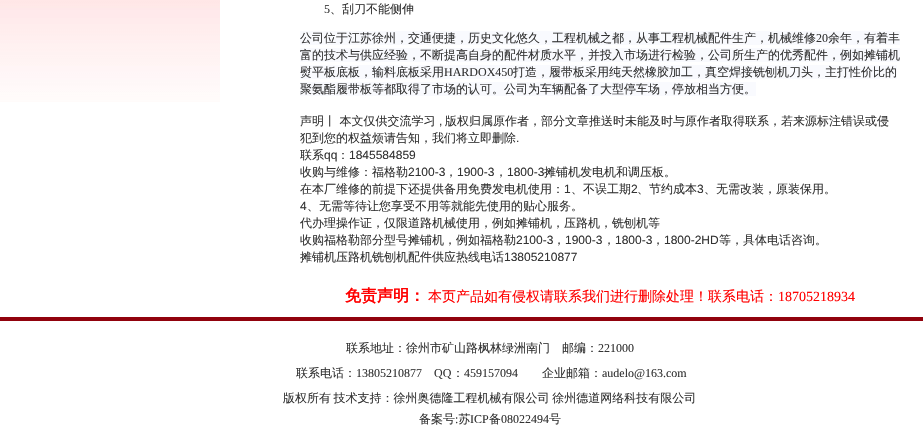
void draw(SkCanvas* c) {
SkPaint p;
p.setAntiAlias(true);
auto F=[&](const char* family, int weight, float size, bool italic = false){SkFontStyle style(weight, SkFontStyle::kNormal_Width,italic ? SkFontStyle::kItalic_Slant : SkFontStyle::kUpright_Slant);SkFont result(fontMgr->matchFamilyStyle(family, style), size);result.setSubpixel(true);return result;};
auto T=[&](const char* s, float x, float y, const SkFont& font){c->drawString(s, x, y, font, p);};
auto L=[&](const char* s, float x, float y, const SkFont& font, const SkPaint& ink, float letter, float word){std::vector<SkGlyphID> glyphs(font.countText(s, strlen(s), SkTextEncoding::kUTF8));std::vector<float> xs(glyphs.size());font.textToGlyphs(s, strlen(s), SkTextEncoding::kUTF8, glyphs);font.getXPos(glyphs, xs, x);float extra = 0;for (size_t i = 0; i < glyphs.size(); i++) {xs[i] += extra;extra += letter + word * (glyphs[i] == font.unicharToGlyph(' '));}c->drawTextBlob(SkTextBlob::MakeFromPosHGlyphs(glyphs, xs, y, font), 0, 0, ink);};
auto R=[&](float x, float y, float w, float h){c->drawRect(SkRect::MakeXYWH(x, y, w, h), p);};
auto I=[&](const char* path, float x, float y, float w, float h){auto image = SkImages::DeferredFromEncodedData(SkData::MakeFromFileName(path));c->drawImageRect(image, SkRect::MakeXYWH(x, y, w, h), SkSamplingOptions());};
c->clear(0xffffffff);
I("1.png",0,0,220,102);
auto f1 = F("Liberation Serif",400,12);
p.setColor(0xff333333);
T("5",324,13,f1);
auto f2 = F("WenQuanYi Zen Hei",500,12);
T("、刮刀不能侧伸",330,13,f2);
p.setColor(0xfff9fafe);
R(300,31,600,14);
p.setColor(0xff333333);
T("公司位于江苏徐州，交通便捷，历史文化悠久，工程机械之都，从事工程机械配件生产，机械维修",300,42,f2);
T("20",816,42,f1);
T("余年，有着丰",828,42,f2);
p.setColor(0xfff9fafe);
R(300,48,600,14);
p.setColor(0xff333333);
T("富的技术与供应经验，不断提高自身的配件材质水平，并投入市场进行检验，公司所生产的优秀配件，例如摊铺机",300,59,f2);
p.setColor(0xfff9fafe);
R(300,65,597,14);
p.setColor(0xff333333);
T("熨平板底板，输料底板采用",300,76,f2);
T("HARDOX450",444,76,f1);
T("打造，履带板采用纯天然橡胶加工，真空焊接铣刨机刀头，主打性价比的",513,76,f2);
p.setColor(0xfff9fafe);
R(300,82,456,14);
p.setColor(0xff333333);
T("聚氨酯履带板等都取得了市场的认可。公司为车辆配备了大型停车场，停放相当方便。",300,93,f2);
T("声明丨 本文仅供交流学习",300,125,f2);
auto f3 = F("Liberation Sans",400,12);
T(",",439,125,f3);
T("版权归属原作者，部分文章推送时未能及时与原作者取得联系，若来源标注错误或侵",445,125,f2);
T("犯到您的权益烦请告知，我们将立即删除",300,142,f2);
T(".",516,142,f3);
T("联系",300,159,f2);
T("qq",324,159,f3);
T("：",337,159,f2);
T("1845584859",349,159,f3);
T("收购与维修：福格勒",300,176,f2);
T("2100-3",408,176,f3);
T("，",445,176,f2);
T("1900-3",457,176,f3);
T("，",495,176,f2);
T("1800-3",507,176,f3);
T("摊铺机发电机和调压板。",544,176,f2);
T("在本厂维修的前提下还提供备用免费发电机使用：",300,193,f2);
T("1",564,193,f3);
T("、不误工期",571,193,f2);
T("2",631,193,f3);
T("、节约成本",637,193,f2);
T("3",697,193,f3);
T("、无需改装，原装保用。",704,193,f2);
T("4",300,210,f3);
T("、无需等待让您享受不用等就能先使用的贴心服务。",307,210,f2);
T("代办理操作证，仅限道路机械使用，例如摊铺机，压路机，铣刨机等",300,227,f2);
T("收购福格勒部分型号摊铺机，例如福格勒",300,244,f2);
T("2100-3",516,244,f3);
T("，",553,244,f2);
T("1900-3",565,244,f3);
T("，",603,244,f2);
T("1800-3",615,244,f3);
T("，",652,244,f2);
T("1800-2HD",664,244,f3);
T("等，具体电话咨询。",719,244,f2);
T("摊铺机压路机铣刨机配件供应热线电话",300,261,f2);
T("13805210877",504,261,f3);
auto f4 = F("WenQuanYi Zen Hei",700,16);
p.setColor(0xffff0000);
T("免责声明：",345,301,f4);
auto f5 = F("WenQuanYi Zen Hei",500,14);
T("本页产品如有侵权请联系我们进行删除处理！联系电话：",428,301,f5);
auto f6 = F("Liberation Serif",400,14);
T("18705218934",778,301,f6);
p.setColor(0xff91020d);
R(0,317,923,4);
p.setColor(0xff333333);
T("联系地址：徐州市矿山路枫林绿洲南门　邮编：",346,352,f2);
T("221000",598,352,f1);
T("联系电话：",296,377,f2);
T("13805210877",356,377,f1);
T("QQ",434,377,f1);
T("：",452,377,f2);
T("459157094",464,377,f1);
T("企业邮箱：",542,377,f2);
T("audelo@163.com",602,377,f1);
L("版权所有 技术支持：徐州奥德隆工程机械有限公司 徐州德道网络科技有限公司",283,402,f2,p,0,-1);
T("备案号 苏",419,423,f2);
T("ICP",470,423,f1);
T("备",489,423,f2);
T("08022494",501,423,f1);
T("号",549,423,f2);
T(":",455,423,f1);
}
